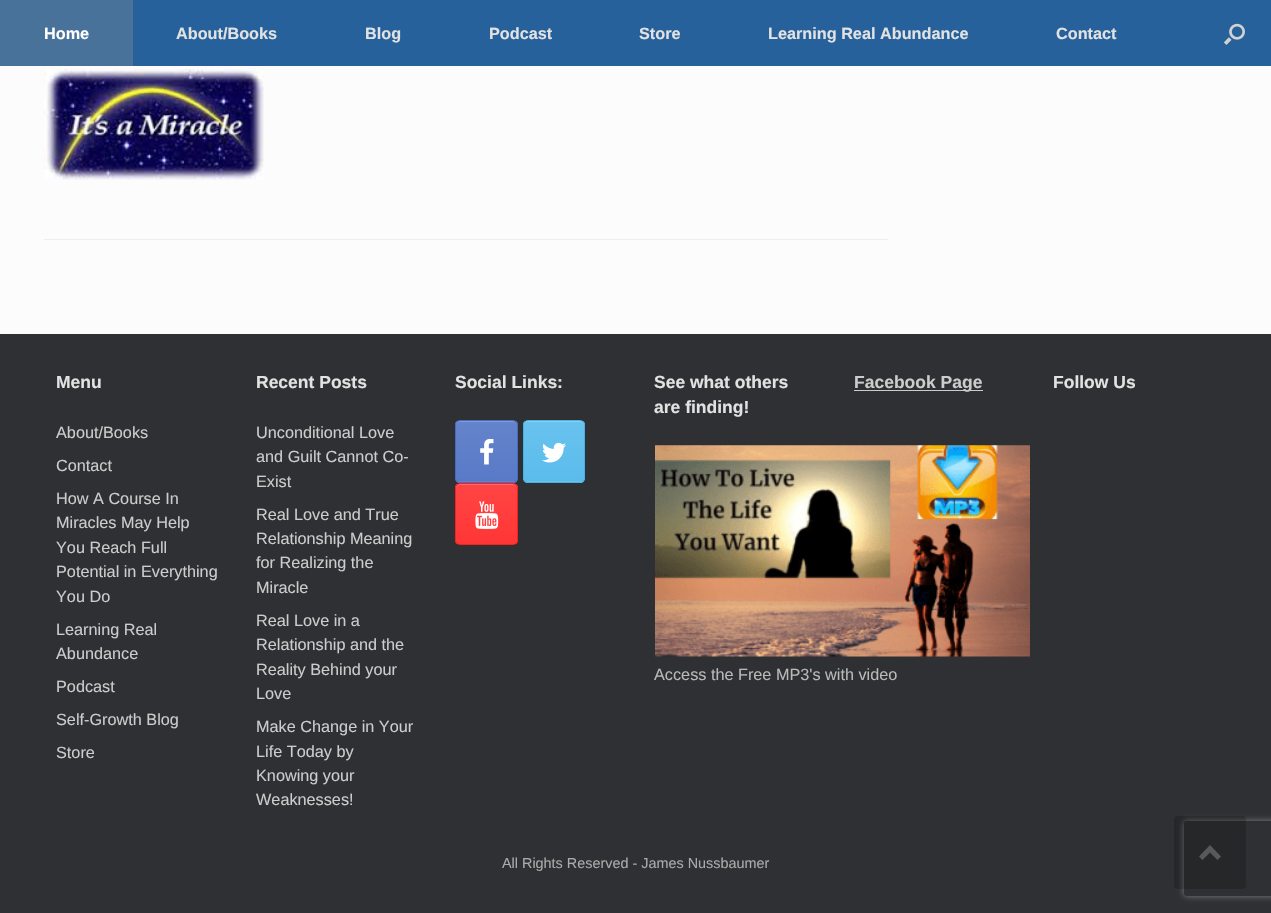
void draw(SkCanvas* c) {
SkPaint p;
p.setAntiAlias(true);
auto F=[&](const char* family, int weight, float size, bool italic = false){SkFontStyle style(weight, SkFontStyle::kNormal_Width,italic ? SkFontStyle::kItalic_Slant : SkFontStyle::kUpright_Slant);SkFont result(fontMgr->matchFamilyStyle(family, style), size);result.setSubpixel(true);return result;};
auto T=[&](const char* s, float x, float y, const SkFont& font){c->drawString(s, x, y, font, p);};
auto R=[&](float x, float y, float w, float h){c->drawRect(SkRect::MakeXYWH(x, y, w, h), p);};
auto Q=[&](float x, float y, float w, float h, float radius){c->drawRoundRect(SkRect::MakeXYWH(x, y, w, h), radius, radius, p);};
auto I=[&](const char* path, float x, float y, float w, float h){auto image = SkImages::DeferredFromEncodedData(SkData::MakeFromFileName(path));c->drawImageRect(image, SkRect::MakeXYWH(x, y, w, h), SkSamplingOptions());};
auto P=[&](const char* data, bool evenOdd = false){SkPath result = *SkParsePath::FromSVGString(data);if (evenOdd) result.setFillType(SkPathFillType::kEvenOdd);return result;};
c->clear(0xff2f3033);
p.setColor(0xff26619b);
R(133,0,1138,66);
p.setColor(0xff49729b);
R(0,0,133,66);
auto f1 = F("Liberation Sans",700,16.25);
p.setColor(0xffffffff);
T("Home",44,39,f1);
p.setColor(0xffe2e2e2);
T("About/Books",176,39,f1);
T("Blog",365,39,f1);
T("Podcast",489,39,f1);
T("Store",639,39,f1);
T("Learning Real Abundance",768,39,f1);
T("Contact",1056,39,f1);
I("1.png",1223,23,22,22);
p.setColor(0xfffcfcfc);
R(0,66,1271,268);
p.setColor(0xffeeeeee);
R(44,239,844,1);
I("2.png",44,69,220,111);
auto f2 = F("Liberation Sans",700,17.5);
p.setColor(0xffe2e2e2);
T("Menu",56,388,f2);
auto f3 = F("Liberation Sans",400,16.25);
p.setColor(0xffcccccc);
T("About/Books",56,438,f3);
T("Contact",56,471,f3);
T("How A Course In",56,504,f3);
T("Miracles May Help",56,528,f3);
T("You Reach Full",56,553,f3);
T("Potential in Everything",56,577,f3);
T("You Do",56,602,f3);
T("Learning Real",56,635,f3);
T("Abundance",56,659,f3);
T("Podcast",56,692,f3);
T("Self-Growth Blog",56,725,f3);
T("Store",56,758,f3);
p.setColor(0xffe2e2e2);
T("Recent Posts",256,388,f2);
p.setColor(0xffcccccc);
T("Unconditional Love",256,438,f3);
T("and Guilt Cannot Co-",256,462,f3);
T("Exist",256,487,f3);
T("Real Love and True",256,520,f3);
T("Relationship Meaning",256,544,f3);
T("for Realizing the",256,568,f3);
T("Miracle",256,593,f3);
T("Real Love in a",256,626,f3);
T("Relationship and the",256,650,f3);
T("Reality Behind your",256,675,f3);
T("Love",256,699,f3);
T("Make Change in Your",256,732,f3);
T("Life Today by",256,757,f3);
T("Knowing your",256,781,f3);
T("Weaknesses!",256,805,f3);
p.setColor(0xffe2e2e2);
T("Social Links:",455,388,f2);
c->save();
c->clipPath(P("M460 420h53c3 0 5 2 5 5v53c0 3-2 5-5 5h-53c-3 0-5-2-5-5v-53c0-3 2-5 5-5z"),true);
{
const SkColor colors[] = {0xff597ac7,0xff6483cb};
const float stops[] = {0,1};
const SkPoint ends[] = {{456,481}, {456,421}};
p.setShader(SkGradientShader::MakeLinear(ends, colors, stops, 2, SkTileMode::kClamp));
p.setAlpha(255);
}
R(455,421,63,60);
{
const SkColor colors[] = {0xff597ac7,0xff6483cb};
const float stops[] = {0,1};
const SkPoint ends[] = {{456,541}, {456,481}};
p.setShader(SkGradientShader::MakeLinear(ends, colors, stops, 2, SkTileMode::kClamp));
p.setAlpha(255);
}
R(455,481,63,2);
c->restore();
p.setShader(nullptr);
p.setColor(0xff839cd5);
c->drawPath(P("M460 422h52c3 0 4 2 4 4c0-7-8-5-13-5h-34c-5 0-13-2-13 5c0-2 2-4 4-4z"),p);
p.setStroke(true);
p.setStrokeWidth(1);
p.setColor(0xff466bc1);
c->drawRoundRect(SkRect::MakeXYWH(455.5,420.5,62,62),4.5,4.5,p);
I("3.png",480,438,14,27);
c->save();
c->clipPath(P("M528 420h52c3 0 5 2 5 5v53c0 3-2 5-5 5h-52c-3 0-5-2-5-5v-53c0-3 2-5 5-5z"),true);
p.setStroke(false);
{
const SkColor colors[] = {0xff5bbcec,0xff69c2ee};
const float stops[] = {0,1};
const SkPoint ends[] = {{524,481}, {524,421}};
p.setShader(SkGradientShader::MakeLinear(ends, colors, stops, 2, SkTileMode::kClamp));
p.setAlpha(255);
}
R(523,421,62,60);
{
const SkColor colors[] = {0xff5bbcec,0xff69c2ee};
const float stops[] = {0,1};
const SkPoint ends[] = {{524,541}, {524,481}};
p.setShader(SkGradientShader::MakeLinear(ends, colors, stops, 2, SkTileMode::kClamp));
p.setAlpha(255);
}
R(523,481,62,2);
c->restore();
p.setShader(nullptr);
p.setColor(0xff8fd1f2);
c->drawPath(P("M528 422h52c2 0 4 2 4 4c0-7-8-5-13-5h-34c-5 0-13-2-13 5c0-2 1-4 4-4z"),p);
p.setStroke(true);
p.setColor(0xff44b3e9);
c->drawRoundRect(SkRect::MakeXYWH(523.5,420.5,61,62),4.5,4.5,p);
I("4.png",542,442,24,21);
c->save();
c->clipPath(P("M460 483h53c3 0 5 2 5 5v52c0 3-2 5-5 5h-53c-3 0-5-2-5-5v-52c0-3 2-5 5-5z"),true);
p.setStroke(false);
{
const SkColor colors[] = {0xffff3635,0xffff4544};
const float stops[] = {0,1};
const SkPoint ends[] = {{456,544}, {456,484}};
p.setShader(SkGradientShader::MakeLinear(ends, colors, stops, 2, SkTileMode::kClamp));
p.setAlpha(255);
}
R(455,484,63,60);
c->restore();
p.setShader(nullptr);
p.setColor(0xffff6a69);
c->drawPath(P("M460 485h52c3 0 4 2 4 4c0-7-8-5-13-5h-34c-5 0-13-2-13 5c0-2 2-4 4-4z"),p);
p.setStroke(true);
p.setColor(0xffff1d1b);
c->drawRoundRect(SkRect::MakeXYWH(455.5,483.5,62,61),4.5,4.5,p);
I("5.png",475,501,24,28);
p.setStroke(false);
p.setColor(0xffe2e2e2);
T("See what others",654,388,f2);
T("are finding!",654,413,f2);
I("6.png",655,445,375,212);
p.setColor(0xffb9b9b9);
T("Access the Free MP3's with video",654,680,f3);
p.setColor(0xffcccccc);
R(854,390,129,1);
T("Facebook Page",854,388,f2);
p.setColor(0xffe2e2e2);
T("Follow Us",1053,388,f2);
auto f4 = F("Liberation Sans",400,14.4);
p.setColor(0xffaaaaaa);
T("All Rights Reserved - James Nussbaumer",502,868,f4);
c->save();
c->clipPath(P("M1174 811h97v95h-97zm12.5 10h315c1.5 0 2.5 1 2.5 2.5v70c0 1.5-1 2.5-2.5 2.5h-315c-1.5 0-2.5-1-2.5-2.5v-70c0-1.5 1-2.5 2.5-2.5z",true),true);
p.setColor(0xff808080);
p.setMaskFilter(SkMaskFilter::MakeBlur(kNormal_SkBlurStyle, 3));
c->drawRoundRect(SkRect::MakeXYWH(1184,821,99,75),2.5,2.5,p);
p.setMaskFilter(nullptr);
c->restore();
p.setColor(0x33000000);
Q(1174,816,72,73,4);
p.setColor(0xff59595c);
c->drawPath(P("M1221 856.5l-11-11.5l-11 11.5l3.5 3.5l7.5-7.5l7.5 7.5z"),p);
}
